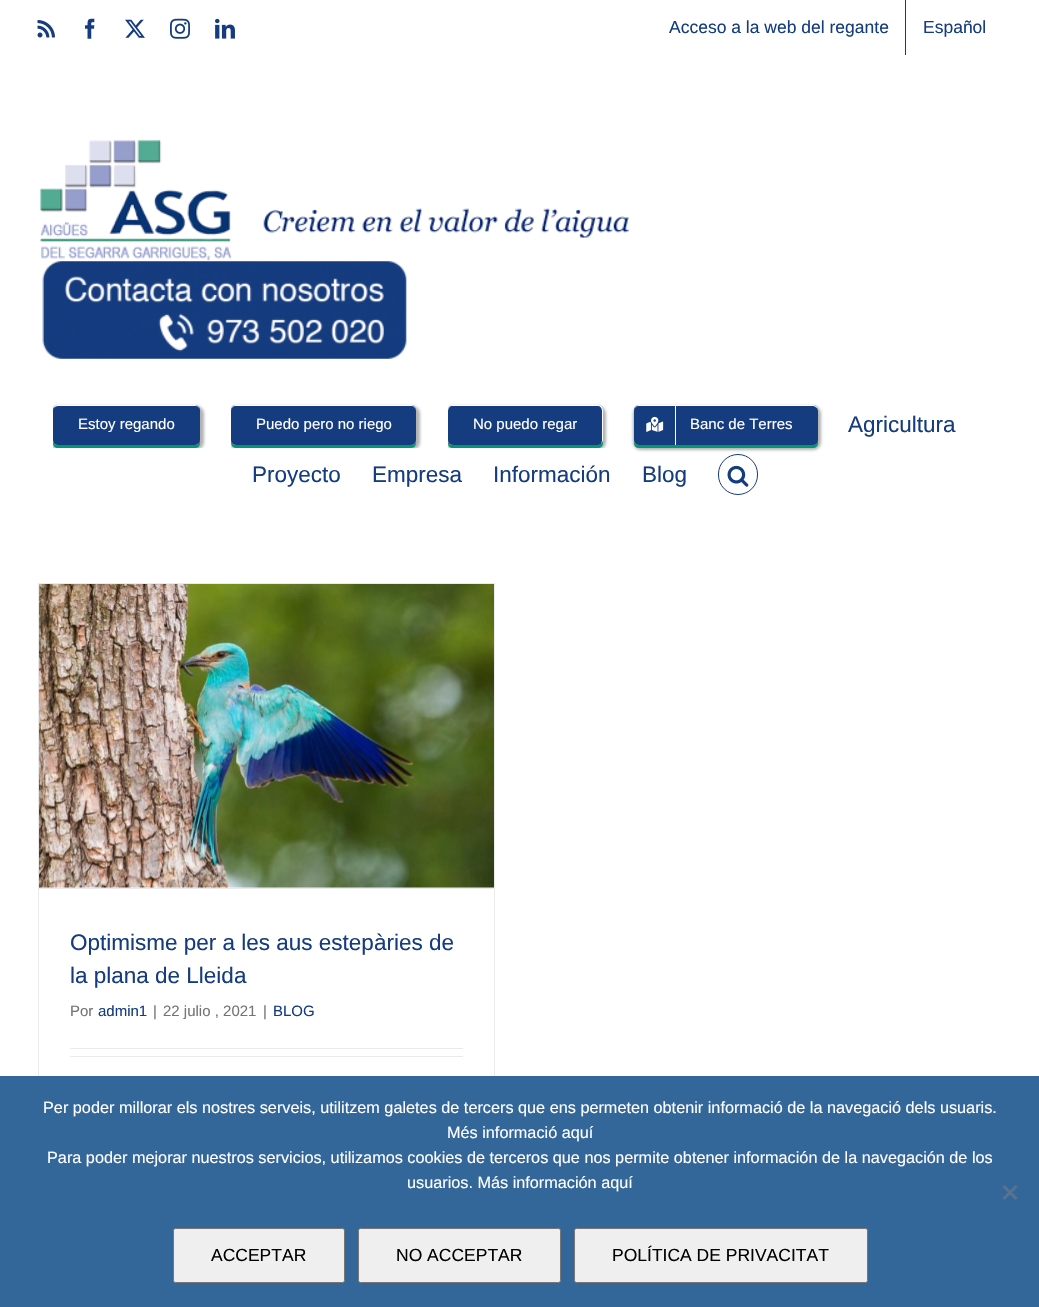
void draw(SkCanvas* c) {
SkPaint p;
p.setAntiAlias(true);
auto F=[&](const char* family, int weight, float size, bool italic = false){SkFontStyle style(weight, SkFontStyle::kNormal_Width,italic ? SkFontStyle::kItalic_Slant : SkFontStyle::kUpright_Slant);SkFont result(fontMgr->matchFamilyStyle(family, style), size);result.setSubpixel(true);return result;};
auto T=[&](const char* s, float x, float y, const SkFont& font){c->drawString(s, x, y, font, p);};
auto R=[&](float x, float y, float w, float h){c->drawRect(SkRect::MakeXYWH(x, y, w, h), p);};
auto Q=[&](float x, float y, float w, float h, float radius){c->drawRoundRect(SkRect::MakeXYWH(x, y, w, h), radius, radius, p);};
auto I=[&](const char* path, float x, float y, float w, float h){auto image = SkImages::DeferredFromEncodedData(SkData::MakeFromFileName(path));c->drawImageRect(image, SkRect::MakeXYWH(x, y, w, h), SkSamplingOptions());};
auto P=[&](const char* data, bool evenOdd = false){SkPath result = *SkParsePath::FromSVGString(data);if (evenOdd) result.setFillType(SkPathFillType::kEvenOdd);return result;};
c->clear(0xffffffff);
I("1.png",37,20,18,18);
I("2.png",85,18,10,21);
I("3.png",125,19,20,19);
I("4.png",170,18,20,21);
I("5.png",215,18,20,21);
auto f1 = F("Liberation Sans",400,17.5);
p.setColor(0xff153c7f);
T("Acceso a la web del regante",669,33,f1);
R(905,0,1,55);
T("Español",923,33,f1);
I("6.png",39,139,590,122);
I("7.png",42,261,365,98);
c->save();
c->clipRect(SkRect::MakeXYWH(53,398,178,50));
p.setColor(0x4d000000);
p.setMaskFilter(SkMaskFilter::MakeBlur(kNormal_SkBlurStyle, 1.5));
c->drawRoundRect(SkRect::MakeXYWH(51,406,153,44),8,8,p);
p.setMaskFilter(nullptr);
c->restore();
p.setColor(0xff009773);
c->drawPath(P("M53 442v1c0 3 2 5 5 5h137c3 0 5-2 5-5v-3c0 3-2 5-5 5h-137c-2 0-4-1-5-3z"),p);
p.setColor(0xff153c7f);
Q(53,405,147,40,5);
p.setColor(0xffffffff);
c->drawPath(P("M58 406h137c3 0 5 2 5 5c0-3-2-6-5-6h-138c-1 0-3 1-3 3c1-1 2-2 4-2z"),p);
auto f2 = F("Arimo",400,15);
T("Estoy regando",78,429,f2);
c->save();
c->clipRect(SkRect::MakeXYWH(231,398,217,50));
p.setColor(0x4d000000);
p.setMaskFilter(SkMaskFilter::MakeBlur(kNormal_SkBlurStyle, 1.5));
c->drawRoundRect(SkRect::MakeXYWH(230,406,190,44),8,8,p);
p.setMaskFilter(nullptr);
c->restore();
c->save();
c->clipRect(SkRect::MakeXYWH(231,398,217,50));
p.setColor(0xff009773);
c->drawPath(P("M231 411v22c0 4-2 15 5 15h175c4 0 5-3 5-6c-1 2-3 3-5 3h-175c-3 0-5-2-5-5z"),p);
c->restore();
p.setColor(0xff153c7f);
Q(231,405,185,40,5);
p.setColor(0xffffffff);
c->drawPath(P("M236 406h175c3 0 5 2 5 5c0-3-1-5-4-6h-177c-3 1-4 3-4 6c0-3 2-5 5-5z"),p);
T("Puedo pero no riego",256,429,f2);
c->save();
c->clipRect(SkRect::MakeXYWH(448,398,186,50));
p.setColor(0x4d000000);
p.setMaskFilter(SkMaskFilter::MakeBlur(kNormal_SkBlurStyle, 1.5));
c->drawRoundRect(SkRect::MakeXYWH(446,406,160,44),8,8,p);
p.setMaskFilter(nullptr);
c->restore();
p.setColor(0xff009773);
c->drawPath(P("M448 442v1c0 3 2 5 5 5h145c3 0 5-2 5-5v-30l-1-2v29c0 3-2 5-4 5h-146c-1 0-3-1-4-3z"),p);
p.setColor(0xff153c7f);
Q(448,405,155,40,5);
p.setColor(0xffffffff);
c->drawPath(P("M452 406h146c2 0 4 2 4 5v30l-1 3c1-1 2-3 2-4v-30c0-3-2-5-5-5h-145c-3 0-5 2-5 5v1c0-3 2-5 4-5z"),p);
T("No puedo regar",473,429,f2);
p.setColor(0x4d000000);
p.setMaskFilter(SkMaskFilter::MakeBlur(kNormal_SkBlurStyle, 1.5));
c->drawRoundRect(SkRect::MakeXYWH(633,406,188,44),8,8,p);
p.setMaskFilter(nullptr);
p.setColor(0xff009773);
c->drawPath(P("M634 442v1c0 3 2 5 5 5h174c3 0 5-2 5-5v-30v-2v29c0 3-3 5-6 5h-173c-2 0-4-1-5-3z"),p);
p.setColor(0xff153c7f);
Q(634,405,184,40,5);
p.setColor(0xffffffff);
c->drawPath(P("M639 406h173c3 0 6 2 6 5c0-3-1-5-4-6h-176c-3 1-4 3-4 6c0-3 2-5 5-5z"),p);
R(675,405,1,40);
I("8.png",646,416,18,16);
T("Banc de Terres",690,429,f2);
auto f3 = F("Arimo",400,22.5);
p.setColor(0xff153c7f);
T("Agricultura",848,432,f3);
T("Proyecto",252,482,f3);
T("Empresa",372,482,f3);
T("Información",493,482,f3);
T("Blog",642,482,f3);
p.setStroke(true);
p.setStrokeWidth(1);
c->drawRoundRect(SkRect::MakeXYWH(718.5,454.5,39,40),19.5,19.5,p);
I("9.png",727,465,22,22);
p.setStroke(false);
p.setColor(0xffebeaea);
R(38,583,457,1);
R(494,583,1,493);
R(38,583,1,493);
R(39,888,455,1);
I("10.png",39,584,455,304);
auto f4 = F("Liberation Sans",400,22.5);
p.setColor(0xff153c7f);
T("Optimisme per a les aus estepàries de",70,950,f4);
T("la plana de Lleida",70,983,f4);
auto f5 = F("Liberation Sans",400,15);
p.setColor(0xff747474);
T("Por",70,1016,f5);
p.setColor(0xff153c7f);
T("admin1",98,1016,f5);
p.setColor(0xff747474);
T("|",153,1016,f5);
T("22 julio , 2021",163,1016,f5);
T("|",263,1016,f5);
p.setColor(0xff153c7f);
T("BLOG",273,1016,f5);
p.setColor(0xffebeaea);
R(70,1048,393,1);
R(70,1056,393,1);
p.setColor(0xff336699);
R(0,1076,1039,231);
auto f6 = F("Liberation Sans",400,16.25);
p.setColor(0xffffffff);
T("Per poder millorar els nostres serveis, utilitzem galetes de tercers que ens permeten obtenir informació de la navegació dels usuaris.",43,1113,f6);
T("Més informació aquí",447,1138,f6);
T("Para poder mejorar nuestros servicios, utilizamos cookies de terceros que nos permite obtener información de la navegación de los",47,1163,f6);
T("usuarios. Más información aquí",407,1188,f6);
p.setColor(0xff5a738d);
c->drawPath(P("M1015.5 1185l2 2l-13 13l-2-2z"),p);
c->drawPath(P("M1002.5 1187l2-2l13 13l-2 2z"),p);
p.setColor(0xffefefef);
c->drawRoundRect(SkRect::MakeXYWH(173.5,1228.5,171,54),2,2,p);
p.setStroke(true);
p.setColor(0xff767676);
c->drawRoundRect(SkRect::MakeXYWH(173.5,1228.5,171,54),2,2,p);
p.setStroke(false);
p.setColor(0xff000000);
T("ACCEPTAR",211,1261,f1);
p.setColor(0xffefefef);
c->drawRoundRect(SkRect::MakeXYWH(358.5,1228.5,202,54),2,2,p);
p.setStroke(true);
p.setColor(0xff767676);
c->drawRoundRect(SkRect::MakeXYWH(358.5,1228.5,202,54),2,2,p);
p.setStroke(false);
p.setColor(0xff000000);
T("NO ACCEPTAR",396,1261,f1);
p.setColor(0xffefefef);
c->drawRoundRect(SkRect::MakeXYWH(574.5,1228.5,293,54),2,2,p);
p.setStroke(true);
p.setColor(0xff767676);
c->drawRoundRect(SkRect::MakeXYWH(574.5,1228.5,293,54),2,2,p);
p.setStroke(false);
p.setColor(0xff000000);
T("POLÍTICA DE PRIVACITAT",612,1261,f1);
}
